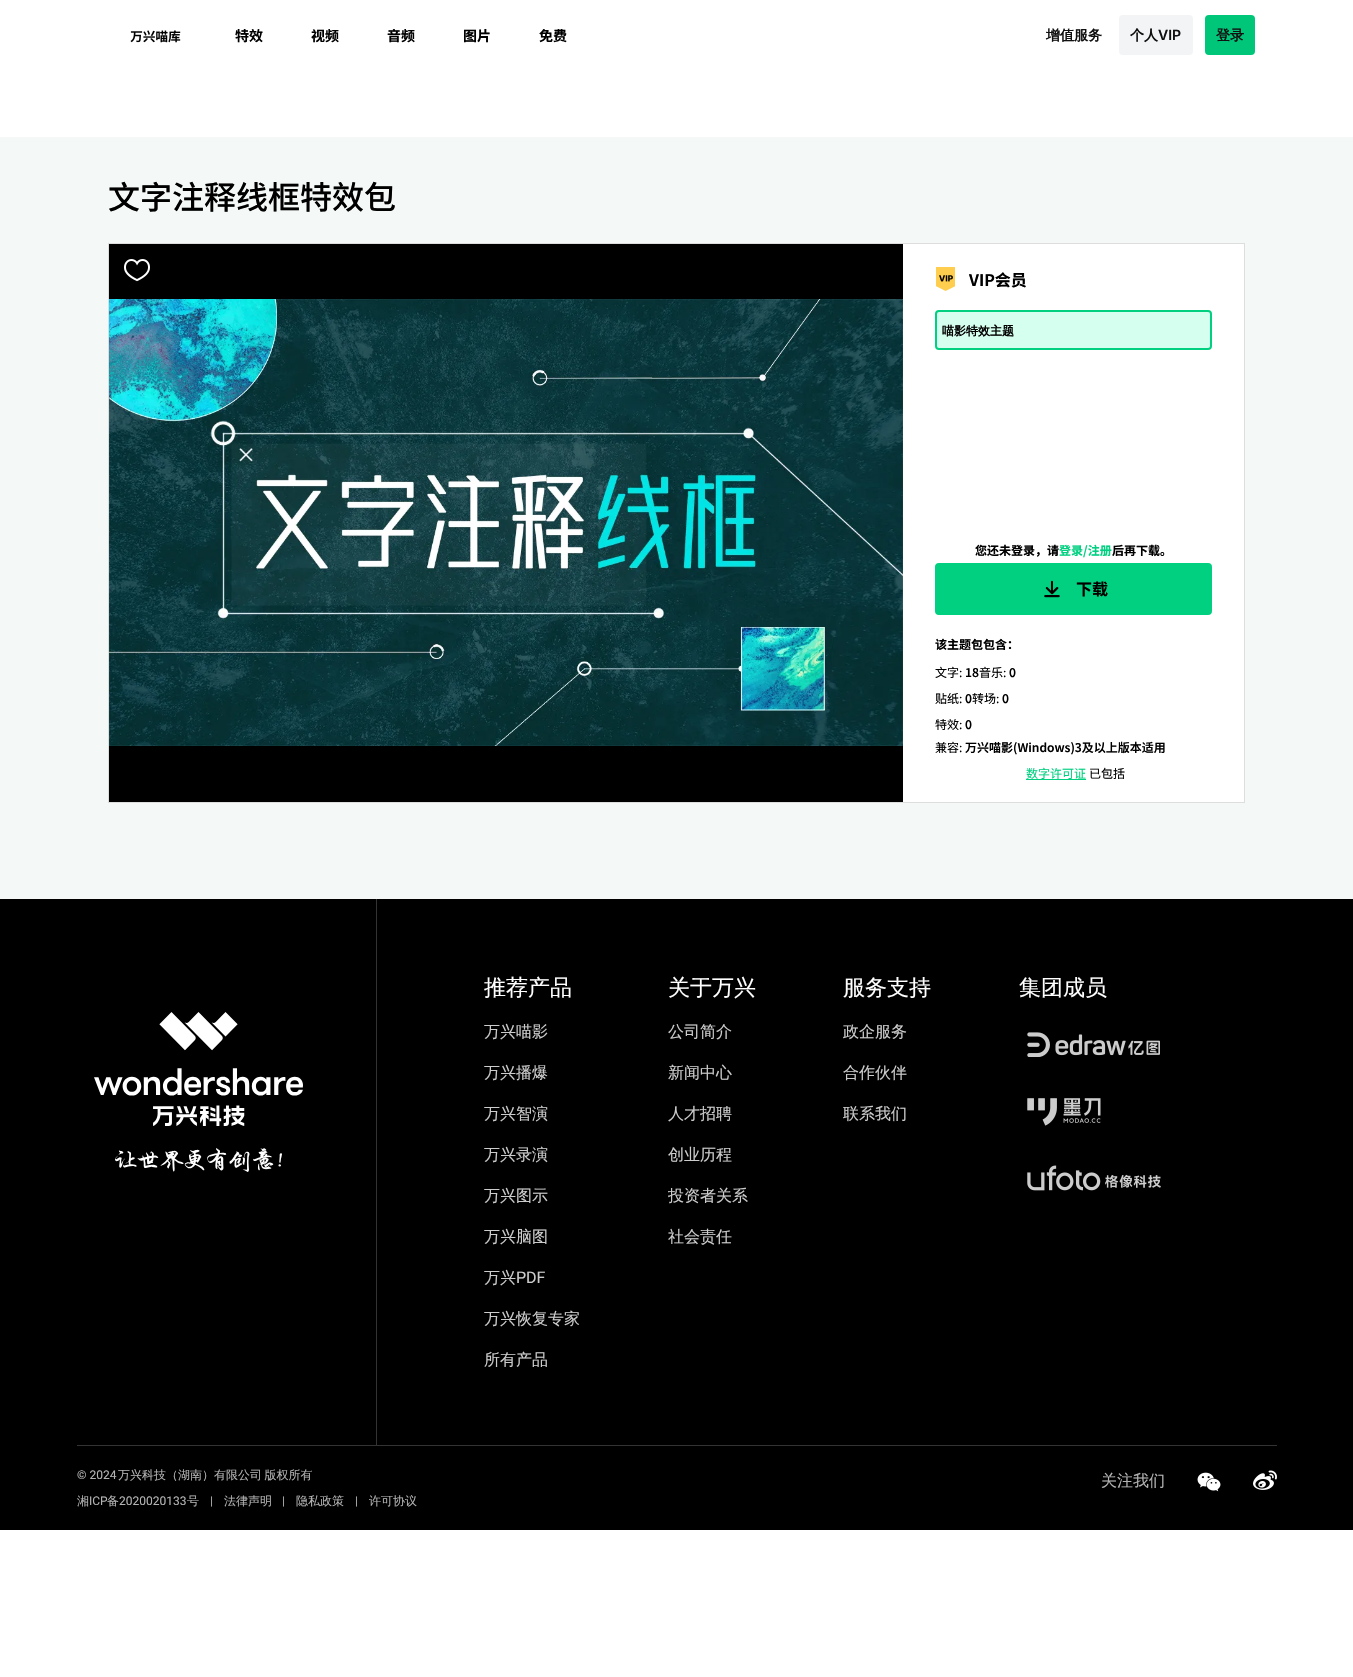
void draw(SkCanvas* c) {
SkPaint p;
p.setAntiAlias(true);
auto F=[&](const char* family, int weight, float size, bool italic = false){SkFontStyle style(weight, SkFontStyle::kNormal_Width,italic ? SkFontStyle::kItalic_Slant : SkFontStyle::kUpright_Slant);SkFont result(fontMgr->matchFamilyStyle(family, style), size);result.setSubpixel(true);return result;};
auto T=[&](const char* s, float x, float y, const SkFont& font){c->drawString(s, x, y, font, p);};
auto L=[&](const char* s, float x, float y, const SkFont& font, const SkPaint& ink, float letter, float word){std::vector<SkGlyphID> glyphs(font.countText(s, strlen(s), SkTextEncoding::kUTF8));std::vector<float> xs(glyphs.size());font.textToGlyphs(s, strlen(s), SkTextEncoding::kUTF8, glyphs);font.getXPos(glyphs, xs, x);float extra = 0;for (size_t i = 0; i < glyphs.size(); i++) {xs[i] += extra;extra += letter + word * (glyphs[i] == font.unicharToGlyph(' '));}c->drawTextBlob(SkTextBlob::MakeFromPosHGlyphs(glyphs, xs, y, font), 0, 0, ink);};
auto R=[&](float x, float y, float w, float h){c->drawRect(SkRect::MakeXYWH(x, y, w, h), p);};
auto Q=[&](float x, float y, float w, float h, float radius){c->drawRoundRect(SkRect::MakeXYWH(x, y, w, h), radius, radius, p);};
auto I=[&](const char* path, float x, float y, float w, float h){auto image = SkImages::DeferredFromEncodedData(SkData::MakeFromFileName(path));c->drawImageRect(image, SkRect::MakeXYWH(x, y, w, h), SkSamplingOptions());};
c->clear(0xffffffff);
p.setColor(0xfff4f8f6);
R(0,137,1353,762);
I("1.png",130,30,51,13);
auto f1 = F("Noto Sans SC",700,14);
p.setColor(0xff000000);
T("特效",235,41,f1);
T("视频",311,41,f1);
T("音频",387,41,f1);
T("图片",463,41,f1);
T("免费",539,41,f1);
auto f2 = F("WenQuanYi Zen Hei",700,14);
p.setColor(0xff111010);
T("增值服务",1046,40,f2);
p.setColor(0xfff2f4f5);
Q(1119,15,74,40,4);
p.setColor(0xff111010);
T("个人",1130,40,f2);
auto f3 = F("Inter",600,14);
T("VIP",1158,40,f3);
p.setColor(0xff00c67a);
Q(1205,15,50,40,4);
p.setColor(0xff111010);
T("登录",1216,40,f2);
auto f4 = F("Noto Sans SC",500,32);
p.setColor(0xff000000);
T("文字注释线框特效包",108,209,f4);
p.setColor(0xffffffff);
R(903,244,341,558);
p.setStroke(true);
p.setStrokeWidth(1);
p.setColor(0xffdddddd);
c->drawRect(SkRect::MakeXYWH(108.5,243.5,1136,559),p);
p.setStroke(false);
p.setColor(0xff000000);
R(109,244,794,558);
I("2.png",109,299,794,447);
I("3.png",124,259,26,23);
I("4.png",936,267,19,24);
auto f5 = F("Noto Sans SC",700,16);
T("VIP会员",969,286,f5);
p.setColor(0xffd5ffef);
c->drawRoundRect(SkRect::MakeXYWH(936,311,275,38),3,3,p);
p.setStroke(true);
p.setStrokeWidth(2);
p.setColor(0xff00d080);
c->drawRoundRect(SkRect::MakeXYWH(936,311,275,38),3,3,p);
auto f6 = F("WenQuanYi Zen Hei",700,12);
p.setStroke(false);
p.setColor(0xff000000);
T("喵影特效主题",942,335,f6);
auto f7 = F("Noto Sans SC",700,12);
T("您还未登录，请",975,555,f7);
p.setColor(0xff00d080);
T("登录/注册",1059,555,f7);
p.setColor(0xff000000);
T("后再下载。",1112,555,f7);
p.setColor(0xff00d080);
c->drawRoundRect(SkRect::MakeXYWH(936,564,275,50),3,3,p);
p.setStroke(true);
c->drawRoundRect(SkRect::MakeXYWH(936,564,275,50),3,3,p);
I("5.png",1044,580,16,18);
p.setStroke(false);
p.setColor(0xff000000);
T("下载",1076,595,f5);
T("该主题包包含：",935,649,f7);
auto f8 = F("Noto Sans SC",400,12);
T("文字:",935,677,f8);
auto f9 = F("Noto Sans SC",600,12);
T("18",965,677,f9);
T("音乐:",979,677,f8);
T("0",1009,677,f9);
T("贴纸:",935,703,f8);
T("0",965,703,f9);
T("转场:",972,703,f8);
T("0",1002,703,f9);
T("特效:",935,729,f8);
T("0",965,729,f9);
T("兼容:",935,752,f8);
T("万兴喵影(Windows)3及以上版本适用",965,752,f9);
p.setColor(0xff00d080);
T("数字许可证",1026,778,f8);
R(1026,779,60,1);
p.setColor(0xff000000);
T("已包括",1089,778,f8);
R(0,899,1353,631);
auto f10 = F("Roboto",400,12);
p.setColor(0xffb3b3b3);
T("© 2024",77,1479,f10);
auto f11 = F("WenQuanYi Zen Hei",500,12);
L("万兴科技（湖南）有限公司 版权所有",118,1479,f11,p,0,-1);
T("湘",77,1505,f11);
T("ICP",89,1505,f10);
T("备",107,1505,f11);
T("2020020133",119,1505,f10);
T("号",187,1505,f11);
T("|",210,1505,f10);
T("法律声明",224,1505,f11);
T("|",282,1505,f10);
T("隐私政策",296,1505,f11);
T("|",355,1505,f10);
T("许可协议",369,1505,f11);
p.setColor(0xff333333);
R(77,1445,1200,1);
R(376,899,1,546);
I("6.png",94,1012,209,160);
auto f12 = F("WenQuanYi Zen Hei",500,22);
p.setColor(0xffffffff);
T("推荐产品",484,995,f12);
auto f13 = F("WenQuanYi Zen Hei",500,16);
p.setColor(0xffcccccc);
T("万兴喵影",484,1037,f13);
T("万兴播爆",484,1078,f13);
T("万兴智演",484,1119,f13);
T("万兴录演",484,1160,f13);
T("万兴图示",484,1201,f13);
T("万兴脑图",484,1242,f13);
T("万兴",484,1283,f13);
auto f14 = F("Roboto",400,16);
T("PDF",516,1283,f14);
T("万兴恢复专家",484,1324,f13);
T("所有产品",484,1365,f13);
p.setColor(0xffffffff);
T("关于万兴",668,995,f12);
p.setColor(0xffcccccc);
T("公司简介",668,1037,f13);
T("新闻中心",668,1078,f13);
T("人才招聘",668,1119,f13);
T("创业历程",668,1160,f13);
T("投资者关系",668,1201,f13);
T("社会责任",668,1242,f13);
p.setColor(0xffffffff);
T("服务支持",843,995,f12);
p.setColor(0xffcccccc);
T("政企服务",843,1037,f13);
T("合作伙伴",843,1078,f13);
T("联系我们",843,1119,f13);
p.setColor(0xffffffff);
T("集团成员",1019,995,f12);
I("7.png",1027,1032,133,25);
I("8.png",1027,1098,74,28);
I("9.png",1027,1165,134,26);
p.setColor(0xffb3b3b3);
T("关注我们",1101,1486,f13);
I("10.png",1197,1472,24,20);
I("11.png",1253,1470,24,20);
}
